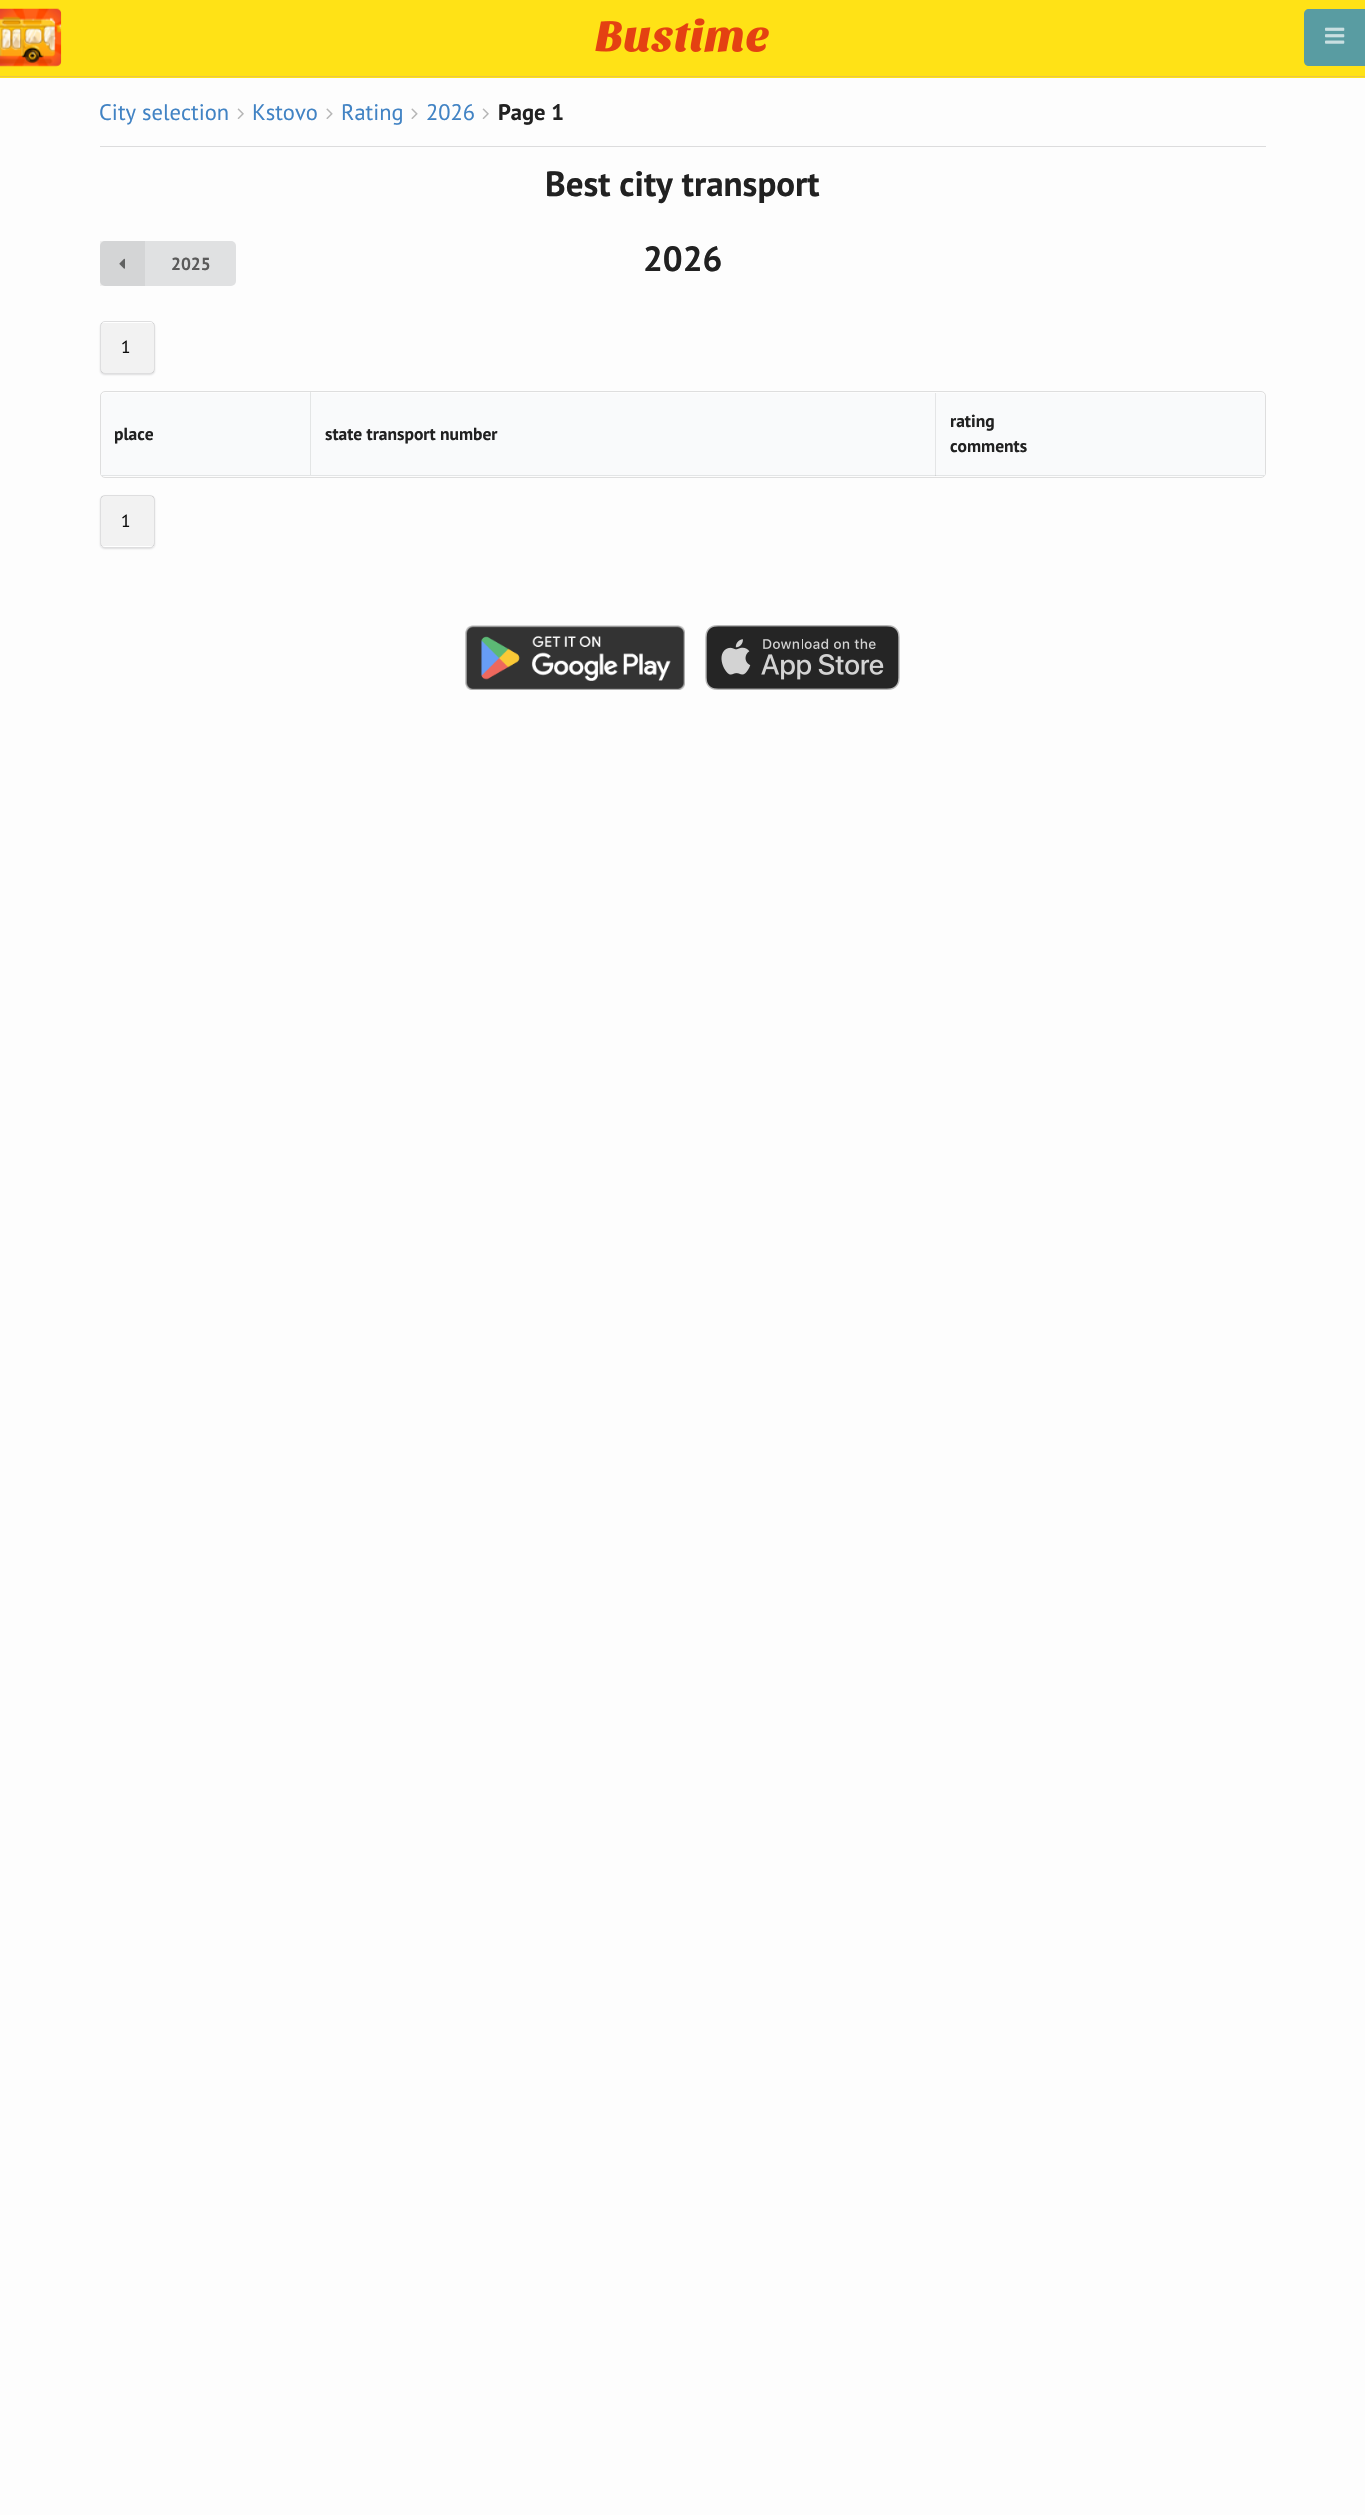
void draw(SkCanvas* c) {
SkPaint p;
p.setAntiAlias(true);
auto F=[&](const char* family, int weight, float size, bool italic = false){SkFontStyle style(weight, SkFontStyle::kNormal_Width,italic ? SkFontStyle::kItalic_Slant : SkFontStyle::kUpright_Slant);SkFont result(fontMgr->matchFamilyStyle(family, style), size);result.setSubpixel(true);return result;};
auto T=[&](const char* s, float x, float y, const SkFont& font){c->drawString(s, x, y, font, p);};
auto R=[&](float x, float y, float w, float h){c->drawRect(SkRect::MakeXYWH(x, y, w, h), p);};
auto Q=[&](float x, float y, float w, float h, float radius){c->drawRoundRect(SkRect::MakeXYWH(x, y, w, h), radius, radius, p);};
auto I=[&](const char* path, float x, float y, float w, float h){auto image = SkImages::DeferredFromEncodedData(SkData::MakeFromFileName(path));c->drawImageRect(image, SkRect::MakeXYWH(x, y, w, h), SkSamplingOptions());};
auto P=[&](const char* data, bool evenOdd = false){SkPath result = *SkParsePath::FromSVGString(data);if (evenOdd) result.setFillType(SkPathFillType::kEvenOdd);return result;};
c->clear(0xfffdfdfd);
p.setColor(0xffffe216);
R(0,0,1365,78);
I("1.png",0,8,62,59);
p.setColor(0xff599ca2);
c->drawPath(P("M1309 9h56v57h-56c-3 0-5-2-5-5v-47c0-3 2-5 5-5z"),p);
I("2.png",1325,27,20,17);
p.setColor(0xffecc745);
R(0,76,1365,1);
I("3.png",595,18,174,34);
auto f1 = F("PT Sans",400,22.5);
p.setColor(0xff4183c4);
T("City selection",99,120,f1);
I("4.png",237,108,7,11);
T("Kstovo",252,120,f1);
I("5.png",326,108,7,11);
T("Rating",341,120,f1);
I("5.png",411,108,7,11);
T("2026",426,120,f1);
I("4.png",482,108,7,11);
auto f2 = F("PT Sans",700,22.5);
p.setColor(0xff212121);
T("Page 1",498,120,f2);
p.setColor(0xffdcdcdd);
R(100,146,1166,1);
auto f3 = F("PT Sans",700,35);
p.setColor(0xff212121);
T("Best city transport",545,196,f3);
p.setColor(0xffe0e1e2);
Q(100,241,136,45,5);
p.setColor(0x0d000000);
R(100,241,45,45);
I("6.png",119,258,6,11);
auto f4 = F("PT Sans",700,17.5);
p.setColor(0xff5a5a5a);
T("2025",171,270,f4);
p.setColor(0xff212121);
T("2026",643,271,f3);
p.setColor(0x26222426);
p.setMaskFilter(SkMaskFilter::MakeBlur(kNormal_SkBlurStyle, 1));
c->drawRoundRect(SkRect::MakeXYWH(100,323,55,52),5,5,p);
p.setMaskFilter(nullptr);
p.setColor(0xffffffff);
Q(100,321,55,53,5);
p.setStroke(true);
p.setStrokeWidth(1);
p.setColor(0x26222426);
c->drawRoundRect(SkRect::MakeXYWH(100.5,321.5,54,52),4.5,4.5,p);
p.setStroke(false);
p.setColor(0x0d000000);
R(101,323,53,50);
auto f5 = F("PT Sans",400,17.5);
p.setColor(0xff0c0c0c);
T("1",121,353,f5);
p.setStroke(true);
p.setColor(0xffdedede);
c->drawRoundRect(SkRect::MakeXYWH(100.5,391.5,1165,86),4.5,4.5,p);
p.setStroke(false);
p.setColor(0xfff9fafb);
c->drawPath(P("M106 393h204v83h-209v-78c0-3 2-5 5-5z"),p);
p.setColor(0xffe3e5e6);
R(101,475,209,1);
p.setColor(0xff212121);
T("place",114,440,f4);
p.setColor(0xfff9fafb);
R(310,393,625,83);
p.setColor(0xffe3e5e6);
c->drawPath(P("M935 476h-625l1-1h624z"),p);
p.setColor(0x1a222426);
c->drawPath(P("M310 476v-84h1v83z"),p);
p.setColor(0xff212121);
T("state transport number",325,440,f4);
p.setColor(0xfff9fafb);
c->drawPath(P("M935 393h325c3 0 5 2 5 5v78h-330z"),p);
p.setColor(0xffe4e5e6);
R(935,393,1,83);
p.setColor(0xffe3e5e6);
R(935,475,330,1);
p.setColor(0xffd0d2d3);
R(935,475,1,1);
p.setColor(0xff212121);
T("rating",950,427,f4);
T("comments",950,452,f4);
p.setColor(0x26222426);
p.setMaskFilter(SkMaskFilter::MakeBlur(kNormal_SkBlurStyle, 1));
c->drawRoundRect(SkRect::MakeXYWH(100,496,55,53),5,5,p);
p.setMaskFilter(nullptr);
p.setColor(0xffffffff);
Q(100,495,55,53,5);
p.setStroke(true);
p.setColor(0x26222426);
c->drawRoundRect(SkRect::MakeXYWH(100.5,495.5,54,52),4.5,4.5,p);
p.setStroke(false);
p.setColor(0x0d000000);
R(101,496,53,50);
p.setColor(0xff0c0c0c);
T("1",121,527,f5);
I("7.png",465,625,220,65);
I("8.png",705,625,195,65);
}
